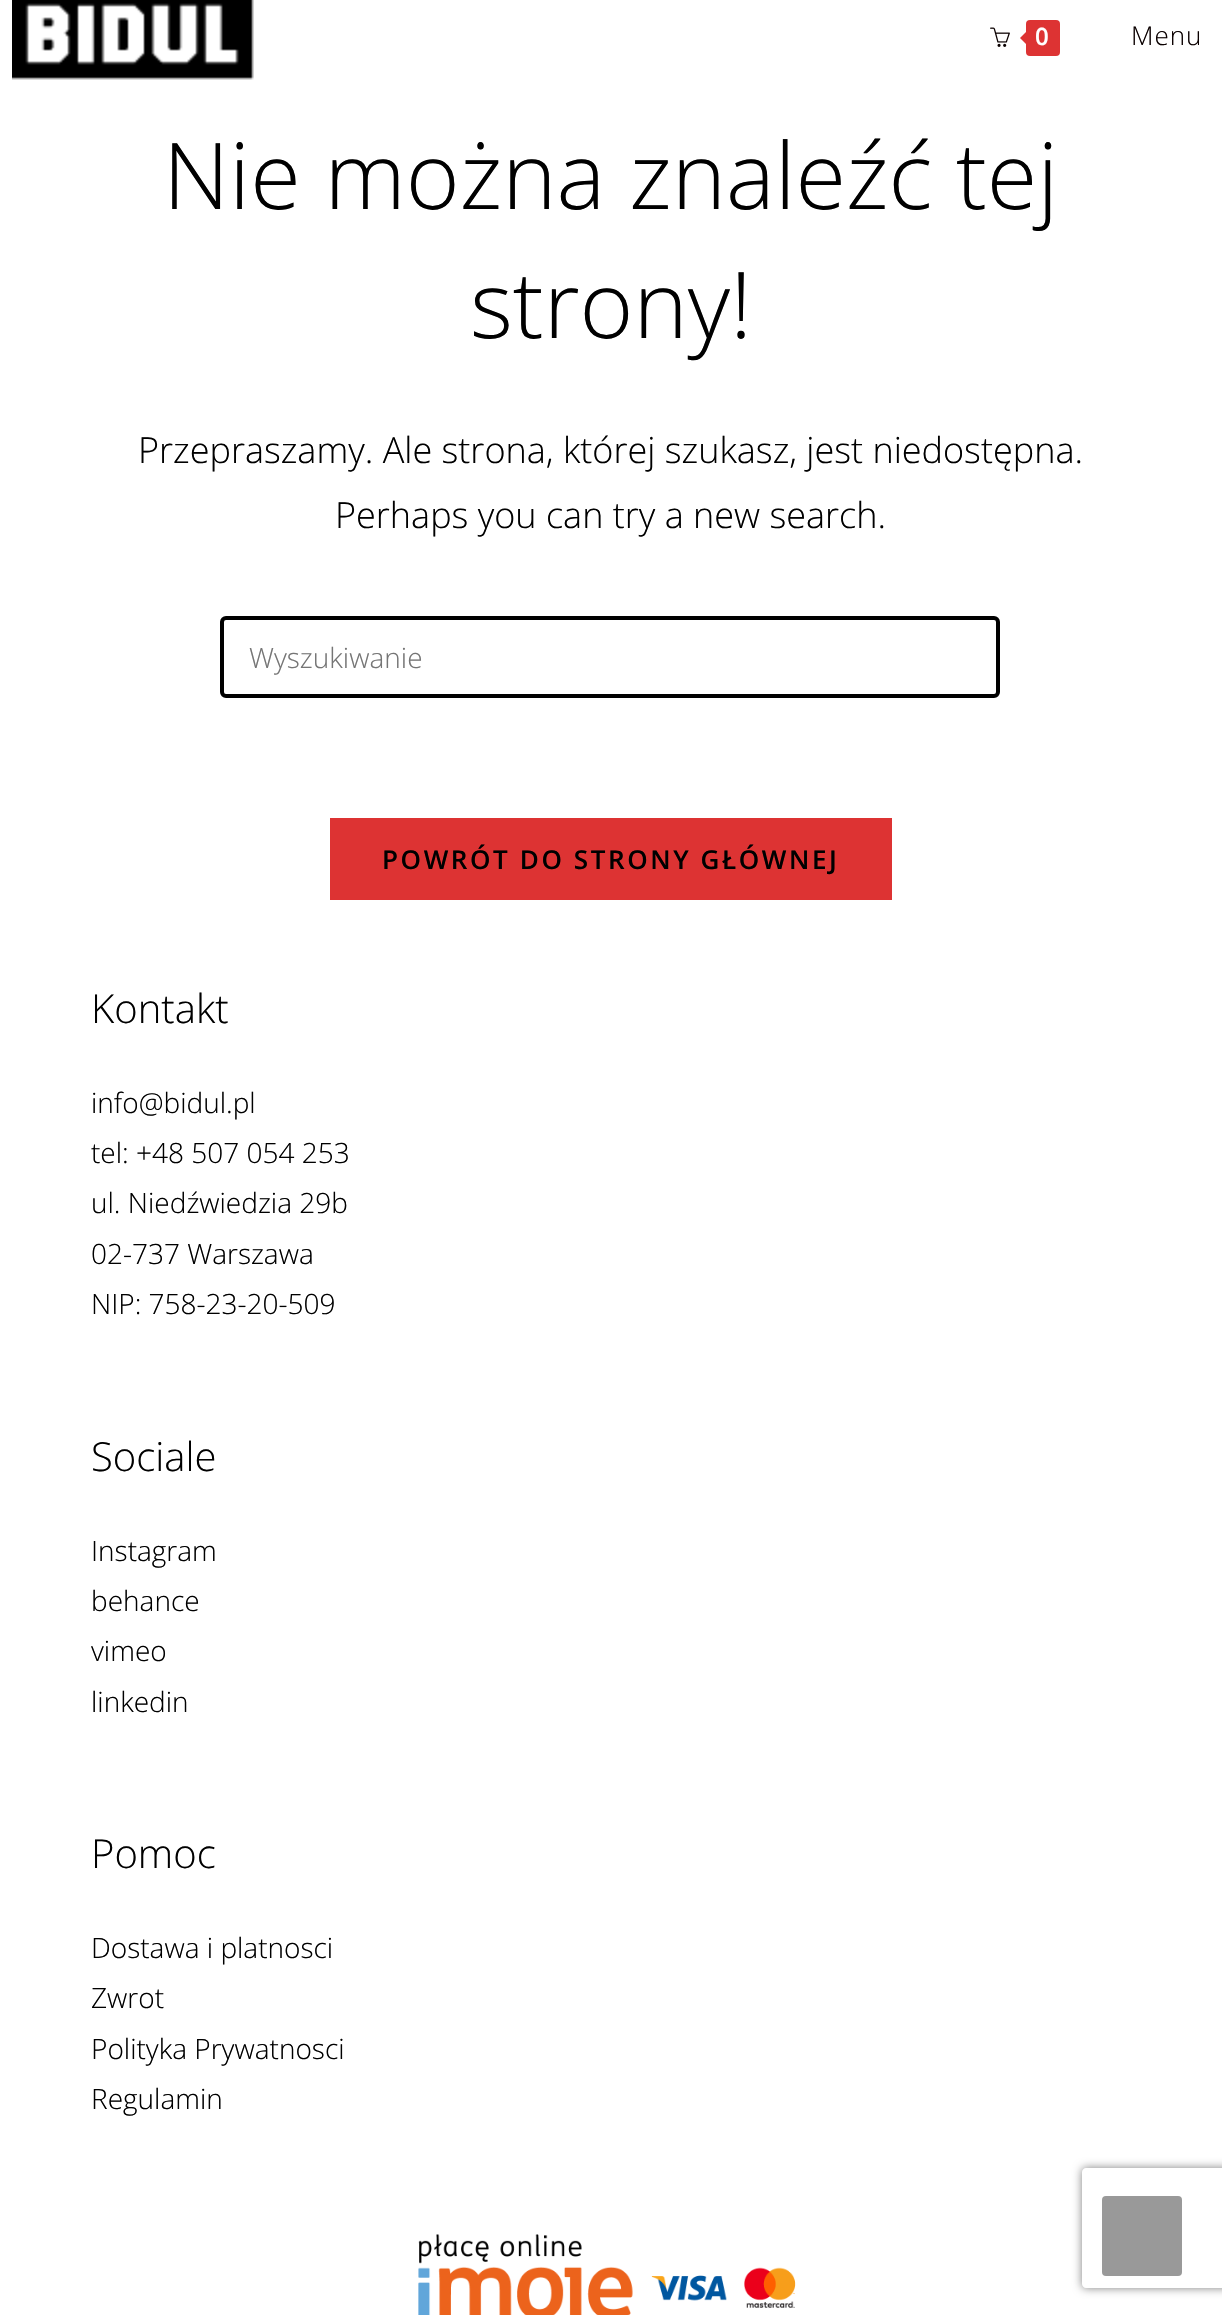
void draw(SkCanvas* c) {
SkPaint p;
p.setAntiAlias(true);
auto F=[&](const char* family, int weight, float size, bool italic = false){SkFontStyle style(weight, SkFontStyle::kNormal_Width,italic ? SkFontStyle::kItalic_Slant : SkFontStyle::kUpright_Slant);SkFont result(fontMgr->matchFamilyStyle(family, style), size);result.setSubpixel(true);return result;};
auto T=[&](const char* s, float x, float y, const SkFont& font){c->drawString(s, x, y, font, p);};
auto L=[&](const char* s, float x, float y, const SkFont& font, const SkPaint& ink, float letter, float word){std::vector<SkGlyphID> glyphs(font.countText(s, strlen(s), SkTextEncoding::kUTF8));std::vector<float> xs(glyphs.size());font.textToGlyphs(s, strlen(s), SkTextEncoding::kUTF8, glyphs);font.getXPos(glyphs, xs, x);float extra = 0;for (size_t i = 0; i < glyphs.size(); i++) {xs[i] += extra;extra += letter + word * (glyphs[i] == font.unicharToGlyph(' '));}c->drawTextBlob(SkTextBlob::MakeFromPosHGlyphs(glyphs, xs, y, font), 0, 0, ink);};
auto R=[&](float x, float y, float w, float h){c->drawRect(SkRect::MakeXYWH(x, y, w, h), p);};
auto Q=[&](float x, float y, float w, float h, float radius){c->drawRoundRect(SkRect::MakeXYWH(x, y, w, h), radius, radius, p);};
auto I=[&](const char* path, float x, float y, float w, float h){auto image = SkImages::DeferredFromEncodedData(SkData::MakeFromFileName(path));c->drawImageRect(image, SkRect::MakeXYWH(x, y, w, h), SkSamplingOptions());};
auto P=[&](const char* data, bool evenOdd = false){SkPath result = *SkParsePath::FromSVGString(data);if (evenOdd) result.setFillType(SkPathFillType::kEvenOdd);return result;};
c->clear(0xffffffff);
I("1.png",12,0,242,80);
I("2.png",990,27,20,20);
p.setColor(0xffdd3333);
Q(1026,20,34,36,4);
c->drawPath(P("M1030 28v20l-10-10z"),p);
auto f1 = F("Open Sans",600,24);
p.setColor(0xffffffff);
L("0",1035,45,f1,p,1,0);
auto f2 = F("Open Sans",300,26);
p.setColor(0xff0a0000);
L("Menu",1131,45,f2,p,1,0);
auto f3 = F("Open Sans",300,92);
p.setColor(0xff000000);
T("Nie można znaleźć tej",163,209,f3);
T("strony!",470,338,f3);
auto f4 = F("Open Sans",300,36);
T("Przepraszamy. Ale strona, której szukasz, jest niedostępna.",138,463,f4);
T("Perhaps you can try a new search.",335,528,f4);
p.setStroke(true);
p.setStrokeWidth(4);
c->drawRoundRect(SkRect::MakeXYWH(222,618,776,78),4,4,p);
auto f5 = F("Open Sans",300,28);
p.setStroke(false);
p.setColor(0xff757575);
T("Wyszukiwanie",249,668,f5);
p.setColor(0xffdd3333);
R(330,818,562,82);
auto f6 = F("Open Sans",600,26);
p.setColor(0xff000000);
L("POWRÓT DO STRONY GŁÓWNEJ",382,869,f6,p,2.6,0);
auto f7 = F("Open Sans",300,40);
T("Kontakt",91,1023,f7);
T("info@bidul.pl",91,1113,f5);
T("tel: +48 507 054 253",91,1163,f5);
T("ul. Niedźwiedzia 29b",91,1213,f5);
T("02-737 Warszawa",91,1264,f5);
T("NIP: 758-23-20-509",91,1314,f5);
T("Sociale",91,1471,f7);
T("Instagram",91,1561,f5);
T("behance",91,1611,f5);
T("vimeo",91,1661,f5);
T("linkedin",91,1712,f5);
T("Pomoc",91,1868,f7);
T("Dostawa i platnosci",91,1958,f5);
T("Zwrot",91,2008,f5);
T("Polityka Prywatnosci",91,2059,f5);
T("Regulamin",91,2109,f5);
I("3.png",418,2234,378,81);
c->save();
c->clipPath(P("M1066 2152h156v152h-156zm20 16h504c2 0 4 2 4 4v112c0 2-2 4-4 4h-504c-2 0-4-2-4-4v-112c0-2 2-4 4-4z",true),true);
p.setColor(0xff808080);
p.setMaskFilter(SkMaskFilter::MakeBlur(kNormal_SkBlurStyle, 5));
c->drawRoundRect(SkRect::MakeXYWH(1082,2168,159,120),4,4,p);
p.setMaskFilter(nullptr);
c->restore();
p.setColor(0xff999999);
Q(1102,2196,80,80,4);
}
